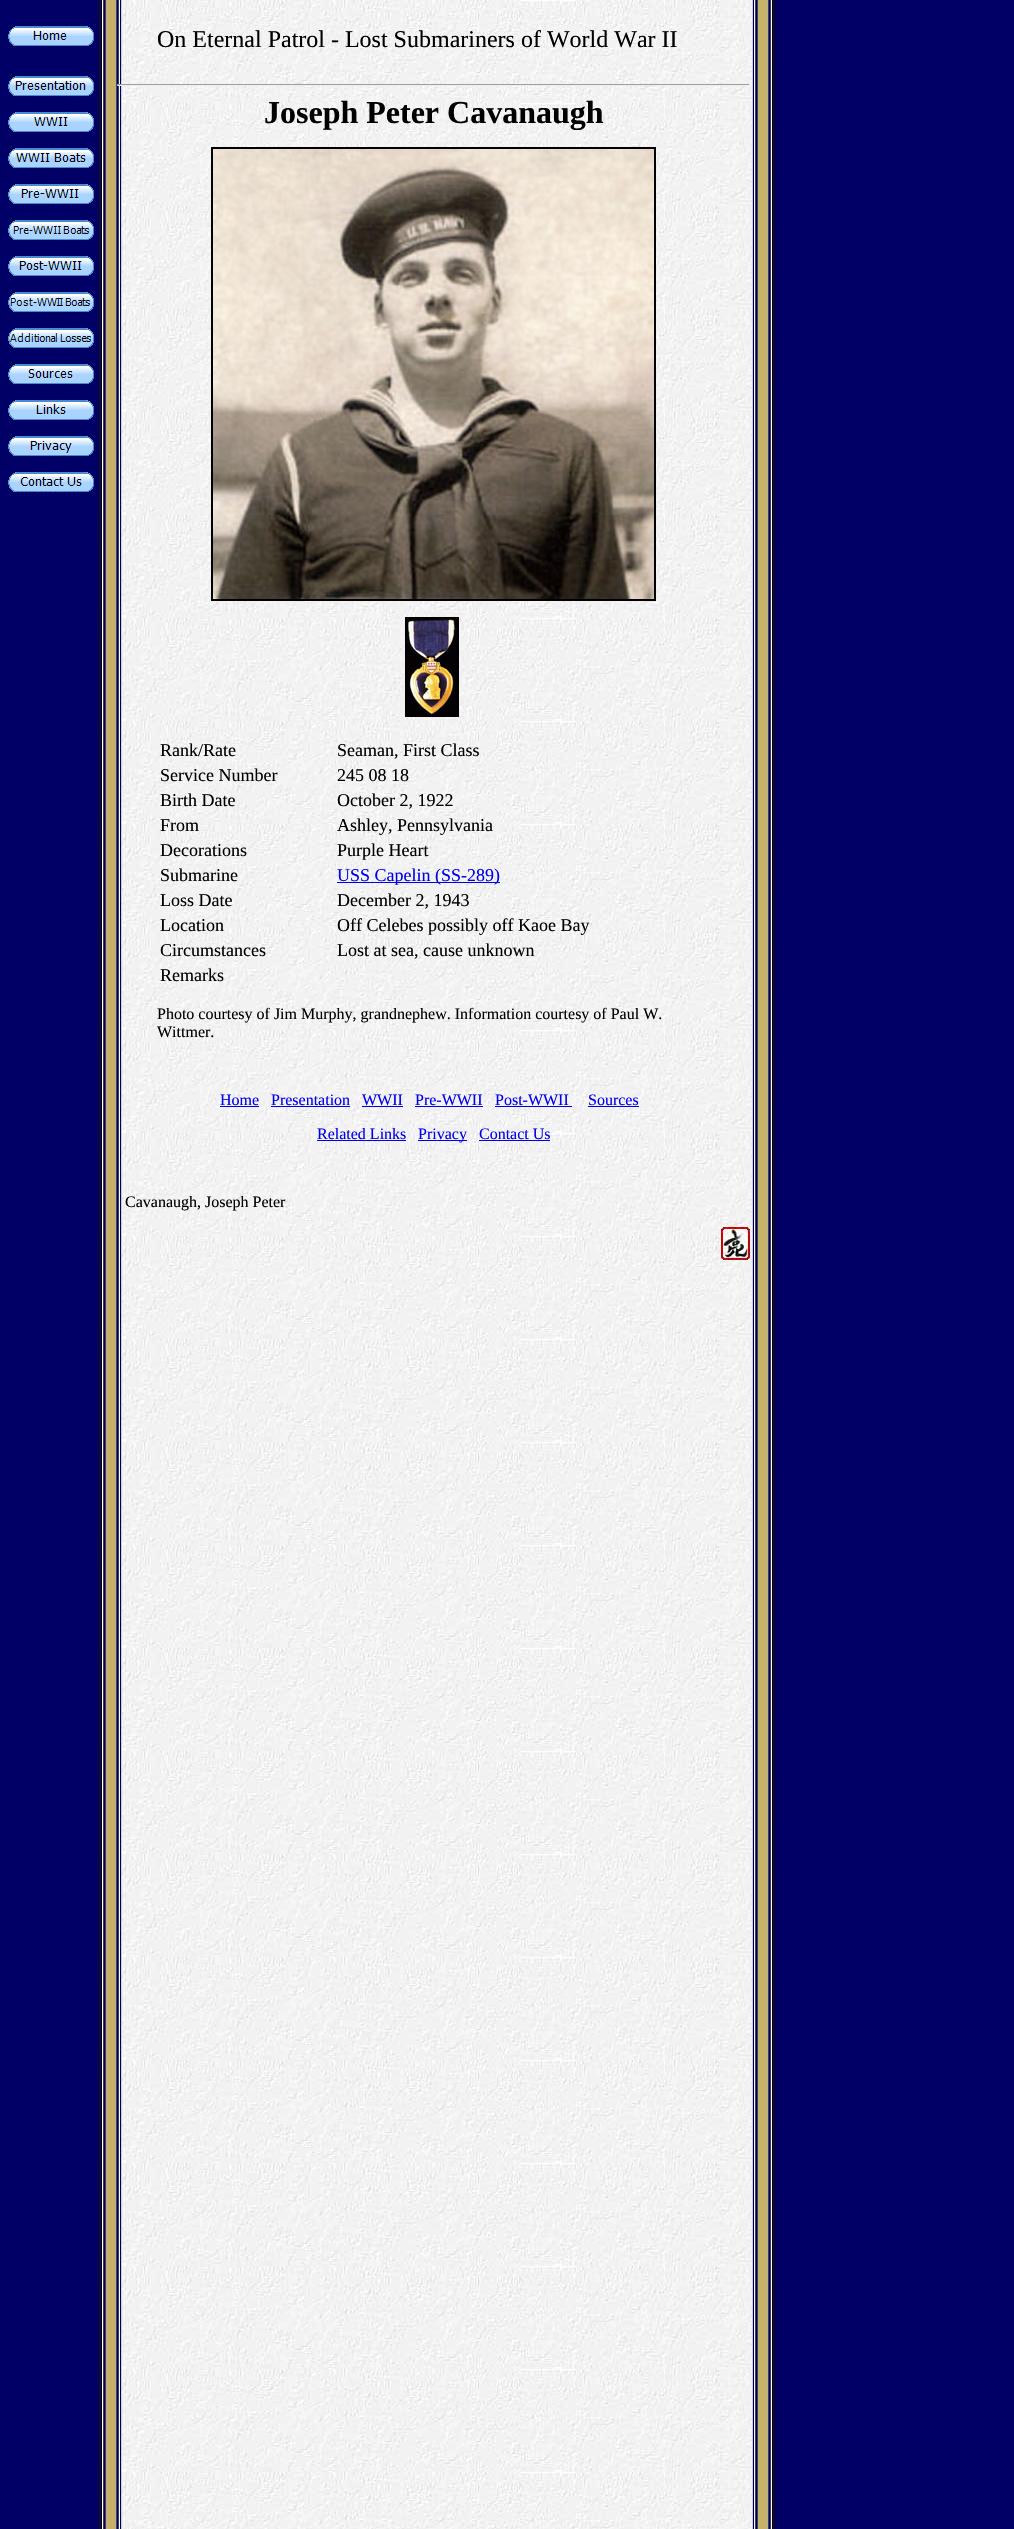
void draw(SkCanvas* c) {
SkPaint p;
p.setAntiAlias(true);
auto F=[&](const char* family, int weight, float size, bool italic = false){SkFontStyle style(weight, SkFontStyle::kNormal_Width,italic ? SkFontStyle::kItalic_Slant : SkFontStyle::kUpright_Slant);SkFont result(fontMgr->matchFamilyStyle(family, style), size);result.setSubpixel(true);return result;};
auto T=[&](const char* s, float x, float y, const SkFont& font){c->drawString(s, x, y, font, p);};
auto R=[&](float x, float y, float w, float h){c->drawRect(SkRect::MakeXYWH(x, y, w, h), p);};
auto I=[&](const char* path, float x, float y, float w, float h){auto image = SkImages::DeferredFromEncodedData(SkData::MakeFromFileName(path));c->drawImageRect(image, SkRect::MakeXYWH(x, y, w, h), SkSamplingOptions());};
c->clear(0xffffffff);
I("1.png",0,0,1014,2529);
I("2.png",8,26,86,20);
auto f1 = F("Liberation Serif",400,24);
p.setColor(0xff000000);
T("On Eternal Patrol - Lost Submariners of World War II",157,47,f1);
I("3.png",8,76,86,20);
I("4.png",8,112,86,20);
I("5.png",8,148,86,20);
I("6.png",8,184,86,20);
I("7.png",8,220,86,20);
I("8.png",8,256,86,20);
I("9.png",8,292,86,20);
I("10.png",8,328,86,20);
I("11.png",8,364,86,20);
I("12.png",8,400,86,20);
I("13.png",8,436,86,20);
I("14.png",8,472,86,20);
p.setColor(0xff9f9f9f);
R(117,84,633,1);
p.setColor(0xffeeeeee);
R(749,84,1,2);
R(117,85,633,1);
p.setColor(0xff9f9f9f);
R(117,84,1,2);
auto f2 = F("Liberation Serif",700,32);
p.setColor(0xff000000);
T("Joseph Peter Cavanaugh",264,123,f2);
p.setStroke(true);
p.setStrokeWidth(2);
c->drawRect(SkRect::MakeXYWH(212,148,443,452),p);
I("15.png",213,149,441,450);
I("16.png",405,617,54,100);
auto f3 = F("Liberation Serif",400,18);
p.setStroke(false);
T("Rank/Rate",160,756,f3);
T("Seaman, First Class",337,756,f3);
T("Service Number",160,781,f3);
T("245 08 18",337,781,f3);
T("Birth Date",160,806,f3);
T("October 2, 1922",337,806,f3);
T("From",160,831,f3);
T("Ashley, Pennsylvania",337,831,f3);
T("Decorations",160,856,f3);
T("Purple Heart",337,856,f3);
T("Submarine",160,881,f3);
p.setColor(0xff0000ee);
R(337,882,163,1);
T("USS Capelin (SS-289)",337,881,f3);
p.setColor(0xff000000);
T("Loss Date",160,906,f3);
T("December 2, 1943",337,906,f3);
T("Location",160,931,f3);
T("Off Celebes possibly off Kaoe Bay",337,931,f3);
T("Circumstances",160,956,f3);
T("Lost at sea, cause unknown",337,956,f3);
T("Remarks",160,981,f3);
auto f4 = F("Liberation Serif",400,16);
T("Photo courtesy of Jim Murphy, grandnephew. Information courtesy of Paul W.",157,1019,f4);
T("Wittmer.",157,1037,f4);
p.setColor(0xff0000ee);
T("Home",220,1105,f4);
R(220,1106,39,1);
T("Presentation",271,1105,f4);
R(271,1106,79,1);
T("WWII",362,1105,f4);
R(362,1106,41,1);
T("Pre-WWII",415,1105,f4);
R(415,1106,68,1);
T("Post-WWII",495,1105,f4);
R(495,1106,77,1);
T("Sources",588,1105,f4);
R(588,1106,51,1);
T("Related Links",317,1139,f4);
R(317,1140,89,1);
R(418,1140,49,1);
T("Privacy",418,1139,f4);
T("Contact Us",479,1139,f4);
R(479,1140,71,1);
p.setColor(0xff000000);
T("Cavanaugh, Joseph Peter",125,1207,f4);
I("17.png",721,1227,29,33);
}
